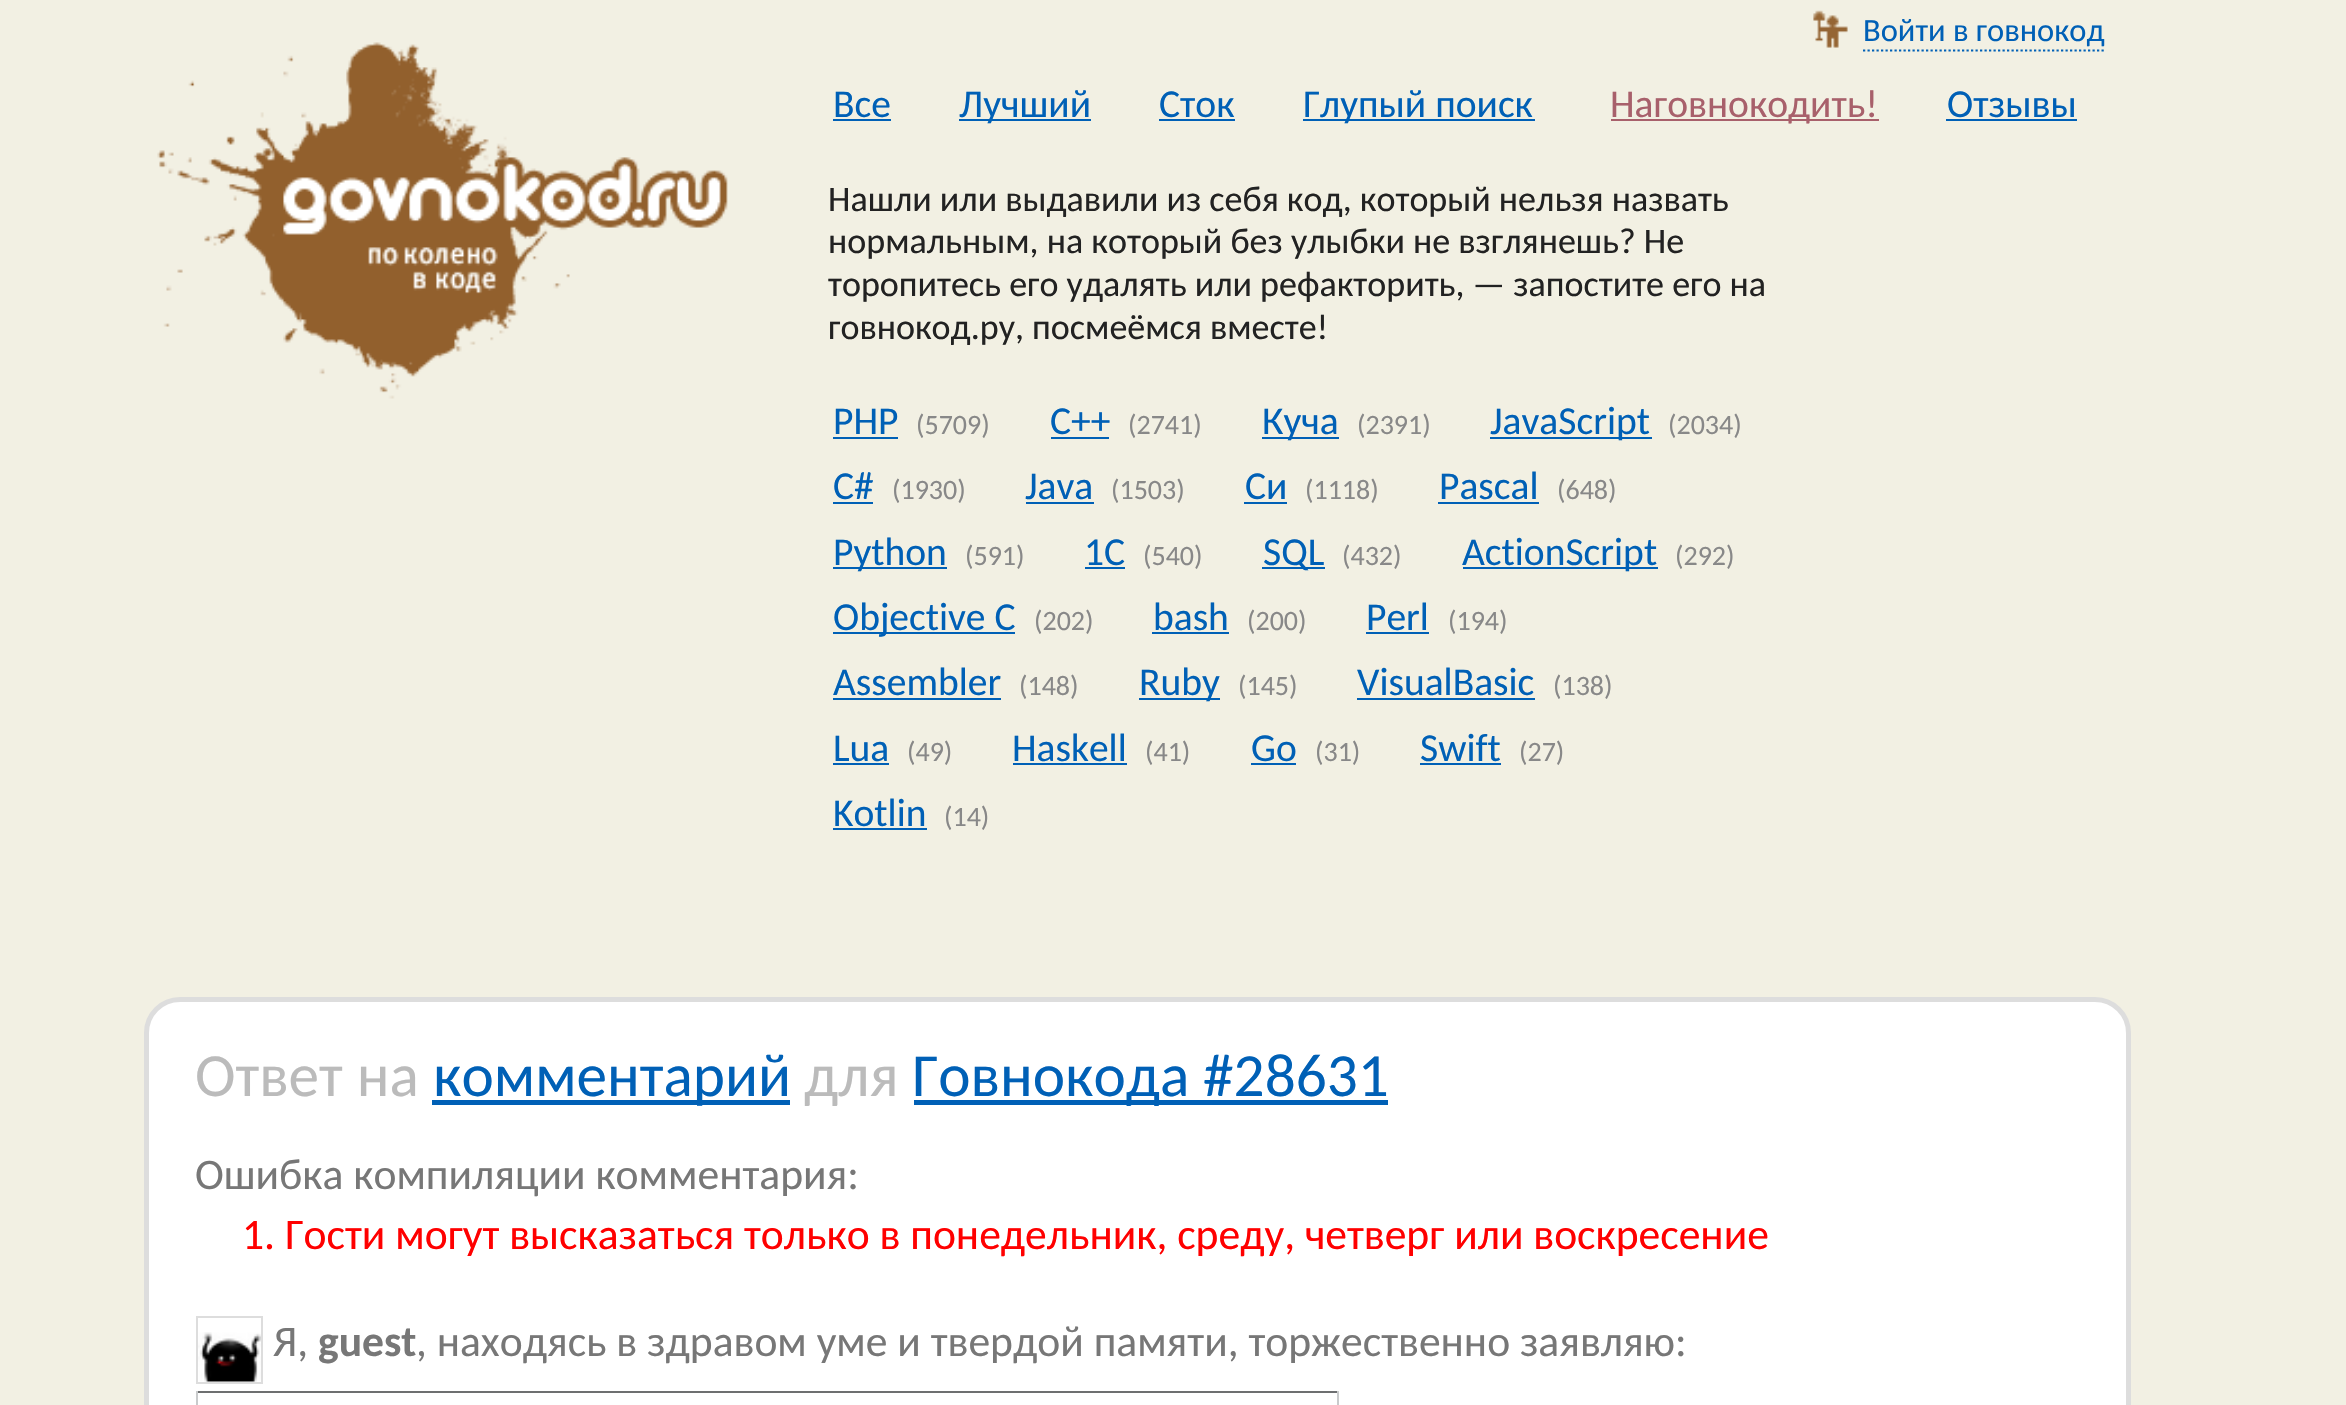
void draw(SkCanvas* c) {
SkPaint p;
p.setAntiAlias(true);
auto F=[&](const char* family, int weight, float size, bool italic = false){SkFontStyle style(weight, SkFontStyle::kNormal_Width,italic ? SkFontStyle::kItalic_Slant : SkFontStyle::kUpright_Slant);SkFont result(fontMgr->matchFamilyStyle(family, style), size);result.setSubpixel(true);return result;};
auto T=[&](const char* s, float x, float y, const SkFont& font){c->drawString(s, x, y, font, p);};
auto R=[&](float x, float y, float w, float h){c->drawRect(SkRect::MakeXYWH(x, y, w, h), p);};
auto I=[&](const char* path, float x, float y, float w, float h){auto image = SkImages::DeferredFromEncodedData(SkData::MakeFromFileName(path));c->drawImageRect(image, SkRect::MakeXYWH(x, y, w, h), SkSamplingOptions());};
auto P=[&](const char* data, bool evenOdd = false){SkPath result = *SkParsePath::FromSVGString(data);if (evenOdd) result.setFillType(SkPathFillType::kEvenOdd);return result;};
c->clear(0xfff2f0e3);
I("1.png",1813,10,35,38);
auto f1 = F("Carlito",400,32.5);
p.setColor(0xff0060b6);
T("Войти в говнокод",1863,41,f1);
p.setStroke(true);
p.setStrokeWidth(2.2);
p.setPathEffect(SkDashPathEffect::Make({{2.25f,2.25f}}, 0));
c->drawPath(P("M1863 50.5h241"),p);
p.setPathEffect(nullptr);
I("2.png",157,42,571,357);
auto f2 = F("Carlito",400,39.5);
p.setStroke(false);
T("Все",833,117,f2);
R(833,119,58,2);
R(959,119,132,2);
T("Лучший",959,117,f2);
T("Сток",1159,117,f2);
R(1159,119,76,2);
R(1303,119,232,2);
T("Глупый поиск",1303,117,f2);
p.setColor(0xffa8606b);
R(1611,119,268,2);
T("Наговнокодить!",1610,117,f2);
p.setColor(0xff0060b6);
T("Oтзывы",1947,117,f2);
R(1946,119,131,2);
auto f3 = F("Carlito",400,36);
p.setColor(0xff222222);
T("Нашли или выдавили из себя код, который нельзя назвать",828,211,f3);
T("нормальным, на который без улыбки не взглянешь? Не",828,253,f3);
T("торопитесь его удалять или рефакторить, — запостите его на",828,296,f3);
T("говнокод.ру, посмеёмся вместе!",828,339,f3);
p.setColor(0xff0060b6);
T("PHP",833,434,f2);
R(833,437,65,2);
auto f4 = F("Carlito",400,28);
p.setColor(0xff888888);
T("(5709)",916,434,f4);
p.setColor(0xff0060b6);
T("C++",1050,434,f2);
R(1051,437,58,2);
p.setColor(0xff888888);
T("(2741)",1128,434,f4);
p.setColor(0xff0060b6);
R(1262,437,77,2);
T("Куча",1262,434,f2);
p.setColor(0xff888888);
T("(2391)",1357,434,f4);
p.setColor(0xff0060b6);
R(1490,437,162,2);
T("JavaScript",1490,434,f2);
p.setColor(0xff888888);
T("(2034)",1668,434,f4);
p.setColor(0xff0060b6);
T("C#",833,499,f2);
R(833,502,40,2);
p.setColor(0xff888888);
T("(1930)",892,499,f4);
p.setColor(0xff0060b6);
T("Java",1025,499,f2);
R(1026,502,68,2);
p.setColor(0xff888888);
T("(1503)",1111,499,f4);
p.setColor(0xff0060b6);
T("Си",1245,499,f2);
R(1244,502,43,2);
p.setColor(0xff888888);
T("(1118)",1305,499,f4);
p.setColor(0xff0060b6);
T("Pascal",1439,499,f2);
R(1438,502,101,2);
p.setColor(0xff888888);
T("(648)",1557,499,f4);
p.setColor(0xff0060b6);
R(833,567,114,2);
T("Python",833,565,f2);
p.setColor(0xff888888);
T("(591)",965,565,f4);
p.setColor(0xff0060b6);
T("1C",1084,565,f2);
R(1085,567,40,2);
p.setColor(0xff888888);
T("(540)",1143,565,f4);
p.setColor(0xff0060b6);
R(1262,567,63,2);
T("SQL",1263,565,f2);
p.setColor(0xff888888);
T("(432)",1342,565,f4);
p.setColor(0xff0060b6);
R(1463,567,195,2);
T("ActionScript",1462,565,f2);
p.setColor(0xff888888);
T("(292)",1675,565,f4);
p.setColor(0xff0060b6);
R(833,632,182,2);
T("Objective C",833,630,f2);
p.setColor(0xff888888);
T("(202)",1034,630,f4);
p.setColor(0xff0060b6);
T("bash",1153,630,f2);
R(1152,632,77,2);
p.setColor(0xff888888);
T("(200)",1247,630,f4);
p.setColor(0xff0060b6);
T("Perl",1366,630,f2);
R(1366,632,63,2);
p.setColor(0xff888888);
T("(194)",1448,630,f4);
p.setColor(0xff0060b6);
T("Assembler",833,695,f2);
R(833,698,168,2);
p.setColor(0xff888888);
T("(148)",1019,695,f4);
p.setColor(0xff0060b6);
R(1139,698,81,2);
T("Ruby",1139,695,f2);
p.setColor(0xff888888);
T("(145)",1238,695,f4);
p.setColor(0xff0060b6);
T("VisualBasic",1357,695,f2);
R(1357,698,178,2);
p.setColor(0xff888888);
T("(138)",1553,695,f4);
p.setColor(0xff0060b6);
T("Lua",833,761,f2);
R(833,763,56,2);
p.setColor(0xff888888);
T("(49)",907,761,f4);
p.setColor(0xff0060b6);
T("Haskell",1012,761,f2);
R(1013,763,114,2);
p.setColor(0xff888888);
T("(41)",1145,761,f4);
p.setColor(0xff0060b6);
T("Go",1251,761,f2);
R(1251,763,45,2);
p.setColor(0xff888888);
T("(31)",1315,761,f4);
p.setColor(0xff0060b6);
T("Swift",1420,761,f2);
R(1420,763,81,2);
p.setColor(0xff888888);
T("(27)",1519,761,f4);
p.setColor(0xff0060b6);
T("Kotlin",833,826,f2);
R(833,828,94,2);
p.setColor(0xff888888);
T("(14)",944,826,f4);
p.setColor(0xffffffff);
c->drawRoundRect(SkRect::MakeXYWH(146.5,999.5,1982,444),33.5,33.5,p);
p.setStroke(true);
p.setStrokeWidth(5);
p.setColor(0xffdddddd);
c->drawRoundRect(SkRect::MakeXYWH(146.5,999.5,1982,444),33.5,33.5,p);
auto f5 = F("Carlito",400,61.25);
p.setStroke(false);
p.setColor(0xffbbbbbb);
T("Ответ на",195,1096,f5);
p.setColor(0xff0060b6);
R(432,1100,358,5);
T("комментарий",433,1096,f5);
p.setColor(0xffbbbbbb);
T("для",804,1096,f5);
p.setColor(0xff0060b6);
R(914,1100,474,5);
T("Говнокода #28631",912,1096,f5);
auto f6 = F("Carlito",400,43.55);
p.setColor(0xff777777);
T("Ошибка компиляции комментария:",195,1189,f6);
p.setColor(0xffff0000);
T("1. Гости могут высказаться только в понедельник, среду, четверг или воскресение",242,1249,f6);
p.setStroke(true);
p.setStrokeWidth(2);
p.setColor(0xffdddddd);
c->drawRect(SkRect::MakeXYWH(197,1317,65,66),p);
p.setStroke(false);
p.setColor(0xff777777);
T("Я,",273,1356,f6);
auto f7 = F("Carlito",700,43.55);
T("guest",318,1356,f7);
T(", находясь в здравом уме и твердой памяти, торжественно заявляю:",416,1356,f6);
I("3.png",198,1332,63,50);
p.setColor(0xff6d6f70);
R(196,1391,1143,2);
p.setColor(0xffc9cbcc);
R(1337,1391,2,14);
R(196,1391,2,14);
}
